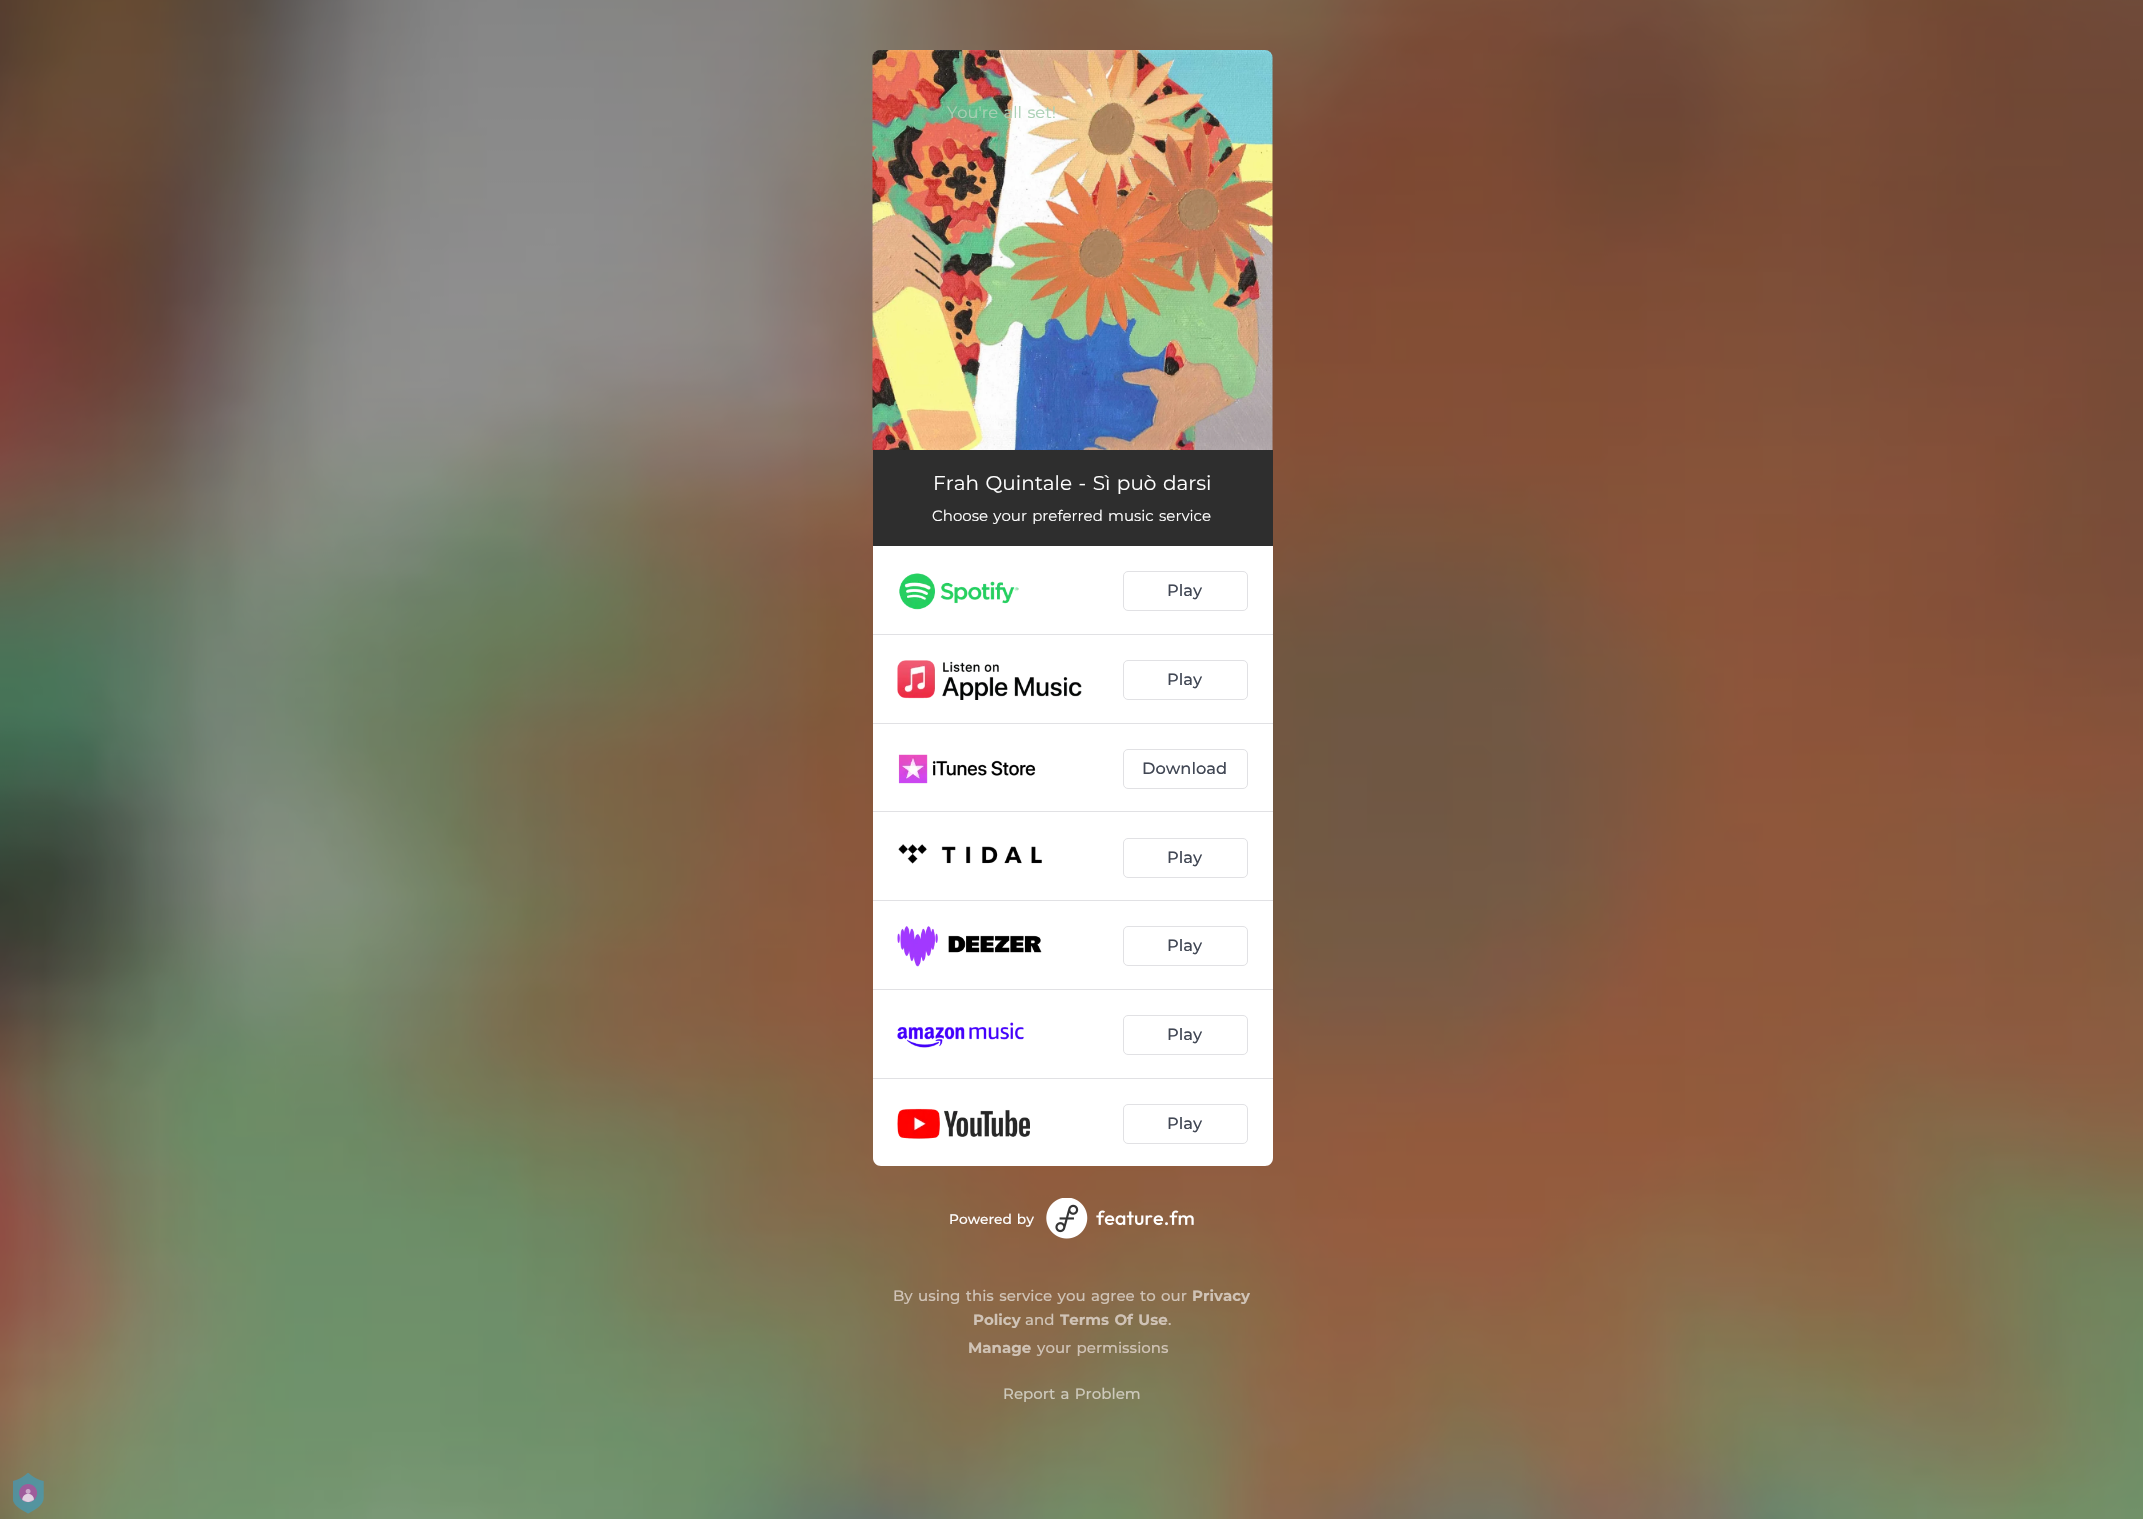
void draw(SkCanvas* c) {
SkPaint p;
p.setAntiAlias(true);
auto F=[&](const char* family, int weight, float size, bool italic = false){SkFontStyle style(weight, SkFontStyle::kNormal_Width,italic ? SkFontStyle::kItalic_Slant : SkFontStyle::kUpright_Slant);SkFont result(fontMgr->matchFamilyStyle(family, style), size);result.setSubpixel(true);return result;};
auto T=[&](const char* s, float x, float y, const SkFont& font){c->drawString(s, x, y, font, p);};
auto L=[&](const char* s, float x, float y, const SkFont& font, const SkPaint& ink, float letter, float word){std::vector<SkGlyphID> glyphs(font.countText(s, strlen(s), SkTextEncoding::kUTF8));std::vector<float> xs(glyphs.size());font.textToGlyphs(s, strlen(s), SkTextEncoding::kUTF8, glyphs);font.getXPos(glyphs, xs, x);float extra = 0;for (size_t i = 0; i < glyphs.size(); i++) {xs[i] += extra;extra += letter + word * (glyphs[i] == font.unicharToGlyph(' '));}c->drawTextBlob(SkTextBlob::MakeFromPosHGlyphs(glyphs, xs, y, font), 0, 0, ink);};
auto R=[&](float x, float y, float w, float h){c->drawRect(SkRect::MakeXYWH(x, y, w, h), p);};
auto I=[&](const char* path, float x, float y, float w, float h){auto image = SkImages::DeferredFromEncodedData(SkData::MakeFromFileName(path));c->drawImageRect(image, SkRect::MakeXYWH(x, y, w, h), SkSamplingOptions());};
auto P=[&](const char* data, bool evenOdd = false){SkPath result = *SkParsePath::FromSVGString(data);if (evenOdd) result.setFillType(SkPathFillType::kEvenOdd);return result;};
c->clear(0xffffffff);
I("1.png",0,0,2143,1519);
I("2.png",872,50,401,400);
auto f1 = F("Montserrat",400,16.25);
p.setColor(0xffabd0b5);
L("You're all set!",947,118,f1,p,0,1.25);
p.setColor(0xff2e2e2e);
R(873,450,400,96);
auto f2 = F("Montserrat",400,20);
p.setColor(0xffffffff);
L("Frah Quintale - Sì può darsi",933,490,f2,p,0,1.25);
auto f3 = F("Montserrat",400,15);
L("Choose your preferred music service",932,521,f3,p,0,1.25);
c->drawPath(P("M873 546h400v612c0 4.5-3.5 8-8 8h-384c-4.5 0-8-3.5-8-8z"),p);
p.setColor(0xffe1e1e4);
R(873,634,400,1);
I("3.png",899,573,120,37);
p.setStroke(true);
p.setStrokeWidth(1);
c->drawRoundRect(SkRect::MakeXYWH(1123.5,571.5,124,39),4.5,4.5,p);
auto f4 = F("Montserrat",500,16.25);
p.setStroke(false);
p.setColor(0xff414754);
T("Play",1167,596,f4);
p.setColor(0xffe1e1e4);
R(873,723,400,1);
I("4.png",897,660,185,40);
p.setStroke(true);
c->drawRoundRect(SkRect::MakeXYWH(1123.5,660.5,124,39),4.5,4.5,p);
p.setStroke(false);
p.setColor(0xff414754);
T("Play",1167,685,f4);
p.setColor(0xffe1e1e4);
R(873,811,400,1);
I("5.png",898,754,138,30);
p.setStroke(true);
c->drawRoundRect(SkRect::MakeXYWH(1123.5,749.5,124,39),4.5,4.5,p);
p.setStroke(false);
p.setColor(0xff414754);
T("Download",1142,774,f4);
p.setColor(0xffe1e1e4);
R(873,900,400,1);
I("6.png",898,844,144,20);
p.setStroke(true);
c->drawRoundRect(SkRect::MakeXYWH(1123.5,838.5,124,39),4.5,4.5,p);
p.setStroke(false);
p.setColor(0xff414754);
T("Play",1167,863,f4);
p.setColor(0xffe1e1e4);
R(873,989,400,1);
I("7.png",897,926,145,41);
p.setStroke(true);
c->drawRoundRect(SkRect::MakeXYWH(1123.5,926.5,124,39),4.5,4.5,p);
p.setStroke(false);
p.setColor(0xff414754);
T("Play",1167,951,f4);
p.setColor(0xffe1e1e4);
R(873,1078,400,1);
I("8.png",897,1022,127,26);
p.setStroke(true);
c->drawRoundRect(SkRect::MakeXYWH(1123.5,1015.5,124,39),4.5,4.5,p);
p.setStroke(false);
p.setColor(0xff414754);
T("Play",1167,1040,f4);
I("9.png",897,1108,133,31);
p.setStroke(true);
p.setColor(0xffe1e1e4);
c->drawRoundRect(SkRect::MakeXYWH(1123.5,1104.5,124,39),4.5,4.5,p);
p.setStroke(false);
p.setColor(0xff414754);
T("Play",1167,1129,f4);
auto f5 = F("Montserrat",500,13.75);
p.setColor(0xffffffff);
L("Powered by",949,1224,f5,p,0,1.25);
I("10.png",1046,1198,148,41);
auto f6 = F("Montserrat",500,15);
p.setColor(0xffd0c3b6);
L("By using this service you agree to our",893,1301,f6,p,0,1.25);
auto f7 = F("Montserrat",700,15);
T("Privacy",1192,1301,f7);
T("Policy",973,1325,f7);
T("and",1025,1325,f6);
L("Terms Of Use",1060,1325,f7,p,0,1.25);
T(".",1168,1325,f6);
T("Manage",968,1353,f7);
L("your permissions",1037,1353,f6,p,0,1.25);
p.setColor(0xffcdc9bb);
L("Report a Problem",1003,1399,f6,p,0,1.25);
I("11.png",13,1473,31,41);
}
